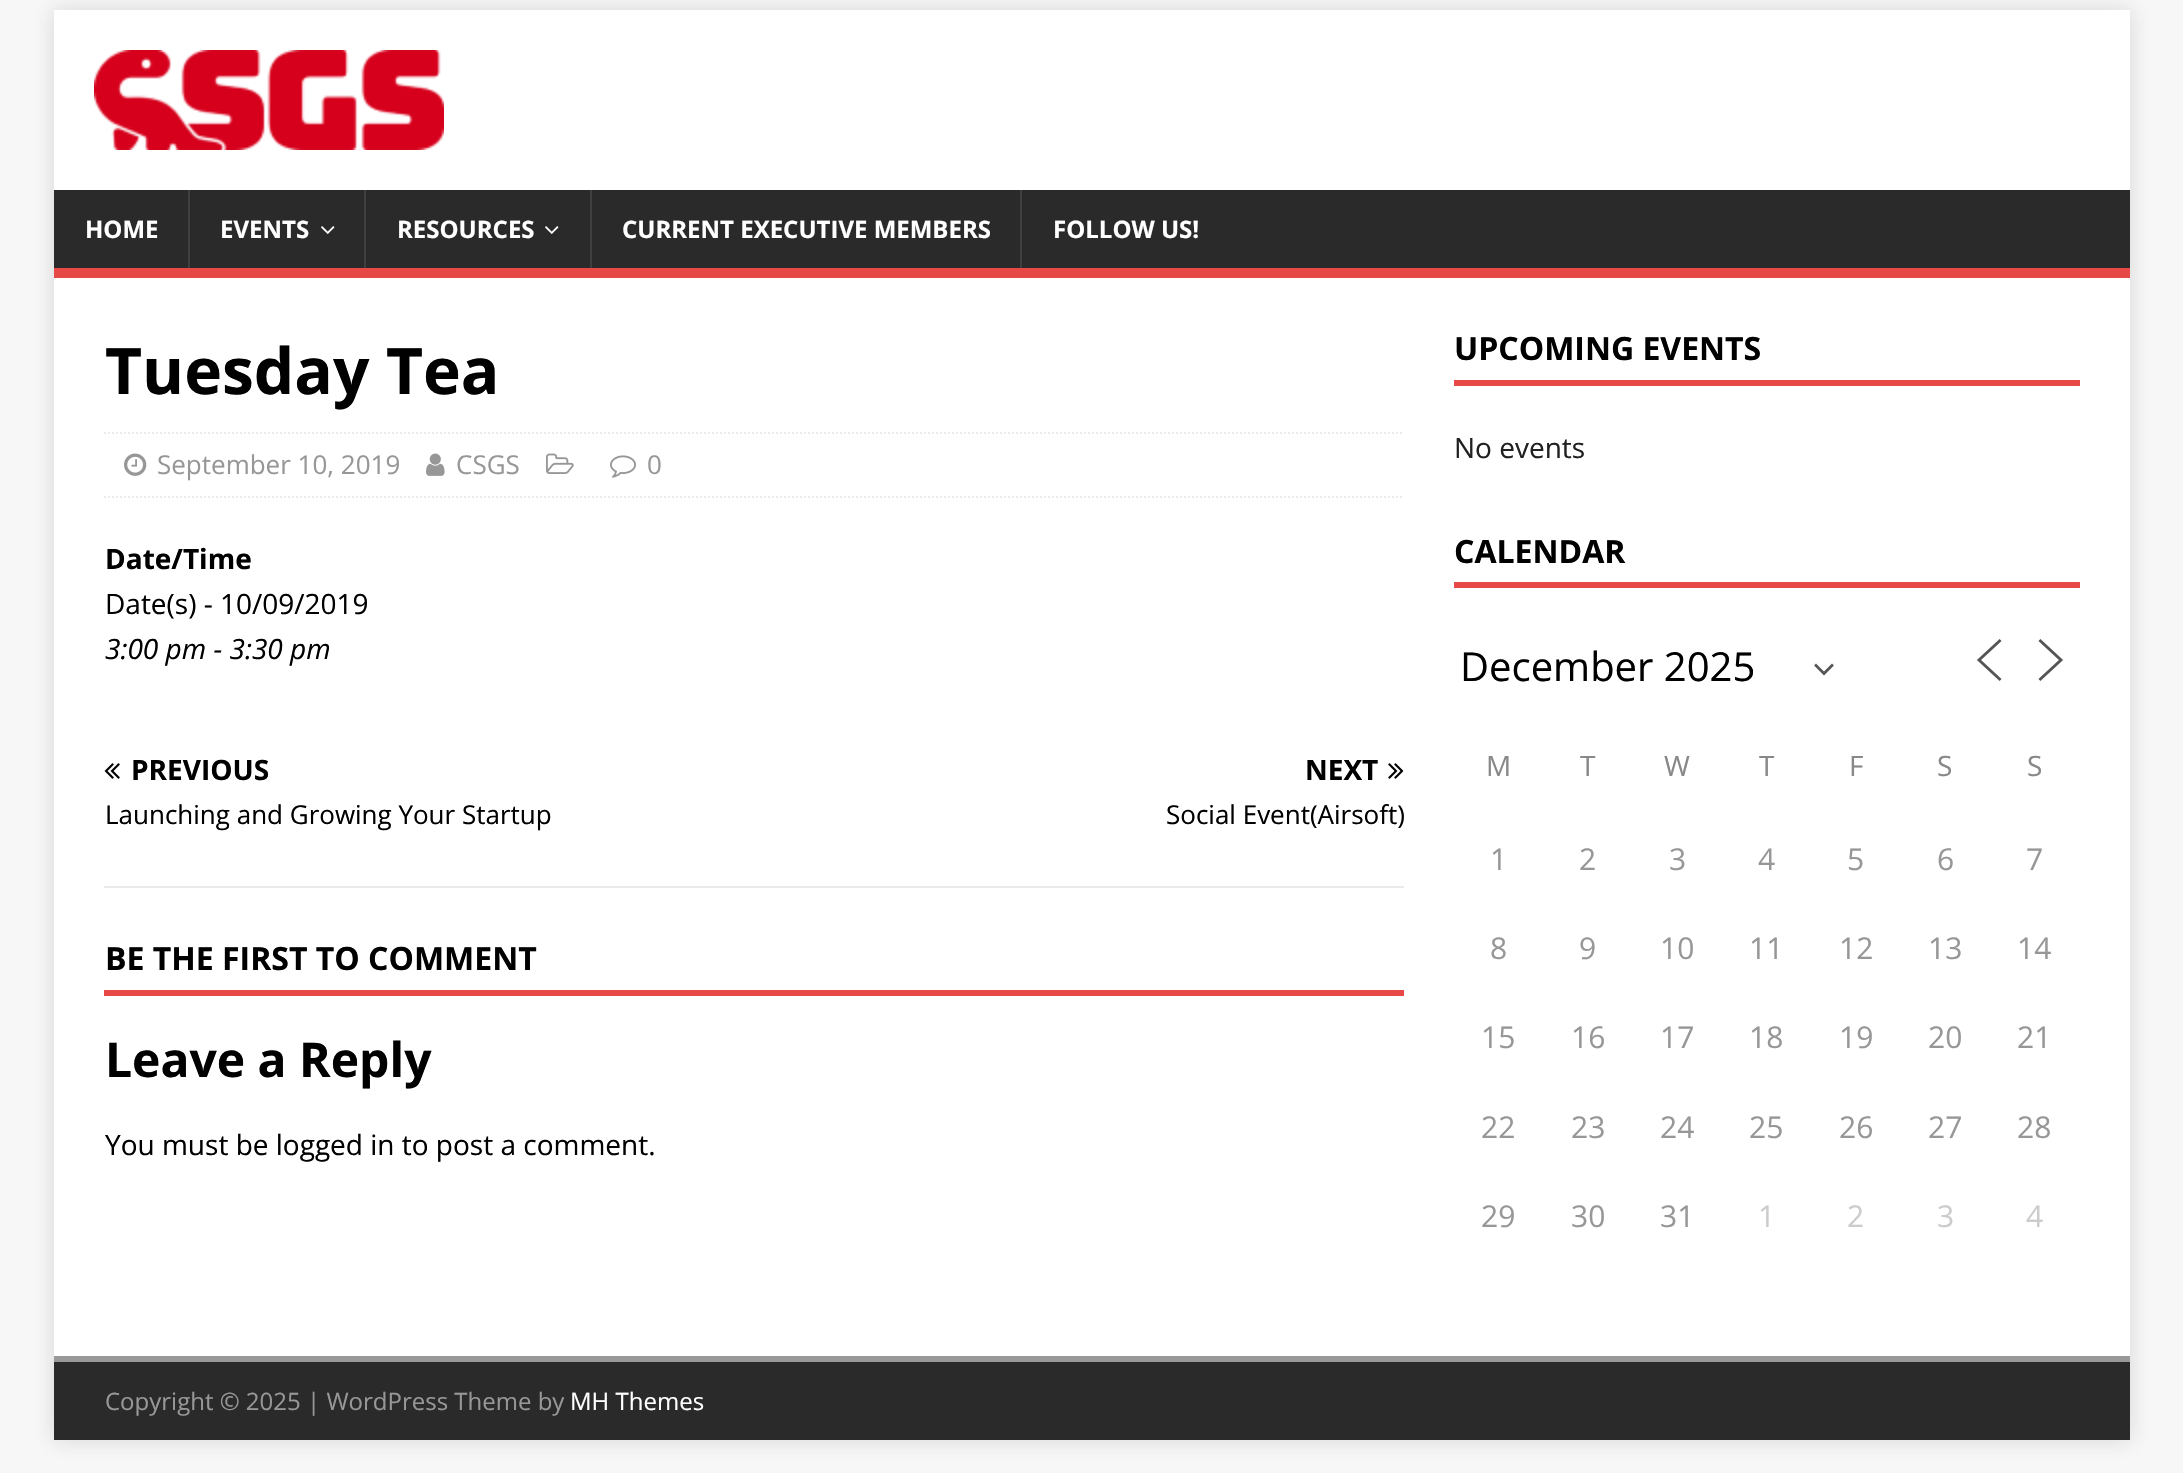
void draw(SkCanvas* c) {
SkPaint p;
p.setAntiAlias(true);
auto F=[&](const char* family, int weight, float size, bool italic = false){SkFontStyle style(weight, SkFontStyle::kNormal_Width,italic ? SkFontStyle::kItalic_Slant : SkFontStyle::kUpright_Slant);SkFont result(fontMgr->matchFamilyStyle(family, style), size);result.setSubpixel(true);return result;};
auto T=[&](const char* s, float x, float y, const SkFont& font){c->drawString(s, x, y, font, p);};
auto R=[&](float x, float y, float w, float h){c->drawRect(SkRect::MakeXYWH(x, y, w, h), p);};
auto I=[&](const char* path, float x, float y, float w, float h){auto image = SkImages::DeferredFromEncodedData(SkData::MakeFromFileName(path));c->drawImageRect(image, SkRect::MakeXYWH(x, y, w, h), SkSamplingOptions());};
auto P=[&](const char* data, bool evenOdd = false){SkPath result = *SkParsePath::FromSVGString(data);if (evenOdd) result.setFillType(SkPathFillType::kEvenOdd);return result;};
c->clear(0xfff7f7f7);
p.setColor(0x2b323232);
p.setMaskFilter(SkMaskFilter::MakeBlur(kNormal_SkBlurStyle, 10));
c->drawRect(SkRect::MakeXYWH(54,10,2076,1430),p);
p.setMaskFilter(nullptr);
p.setColor(0xffffffff);
R(54,10,2076,180);
I("1.png",94,50,350,100);
p.setColor(0xff2a2a2a);
R(54,190,2076,78);
p.setColor(0xffe64946);
R(54,268,2076,10);
auto f1 = F("Open Sans",700,24);
p.setColor(0xffffffff);
T("HOME",85,238,f1);
p.setColor(0xff3f3f3f);
R(188,190,2,78);
p.setColor(0xffffffff);
T("EVENTS",220,238,f1);
I("2.png",321,226,14,8);
p.setColor(0xff3f3f3f);
R(364,190,2,78);
p.setColor(0xffffffff);
T("RESOURCES",397,238,f1);
I("2.png",545,226,14,8);
p.setColor(0xff3f3f3f);
R(590,190,2,78);
p.setColor(0xffffffff);
T("CURRENT EXECUTIVE MEMBERS",622,238,f1);
p.setColor(0xff3f3f3f);
R(1020,190,2,78);
p.setColor(0xffffffff);
T("FOLLOW US!",1053,238,f1);
R(54,278,2076,1078);
auto f2 = F("Open Sans",700,64);
p.setColor(0xff000000);
T("Tuesday Tea",105,394,f2);
p.setStroke(true);
p.setStrokeWidth(2);
p.setColor(0xffebebeb);
p.setPathEffect(SkDashPathEffect::Make({{2,2}}, 0));
c->drawPath(P("M104 433h1300"),p);
p.setPathEffect(nullptr);
p.setPathEffect(SkDashPathEffect::Make({{2,2}}, 0));
c->drawPath(P("M104 497h1300"),p);
p.setPathEffect(nullptr);
I("3.png",124,453,23,23);
auto f3 = F("Open Sans",400,26);
p.setStroke(false);
p.setColor(0xff979797);
T("September 10, 2019",157,474,f3);
I("4.png",426,453,19,23);
T("CSGS",456,474,f3);
I("5.png",546,453,28,21);
I("6.png",610,455,26,23);
T("0",647,474,f3);
auto f4 = F("Open Sans",700,28);
p.setColor(0xff000000);
T("Date/Time",105,569,f4);
auto f5 = F("Open Sans",400,28);
T("Date(s) - 10/09/2019",105,614,f5);
auto f6 = F("Open Sans",400,28,true);
T("3:00 pm - 3:30 pm",105,659,f6);
p.setColor(0xffebebeb);
R(104,886,1300,2);
I("7.png",104,763,16,16);
p.setColor(0xff000000);
T("PREVIOUS",131,780,f4);
T("Launching and Growing Your Startup",105,824,f3);
T("NEXT",1305,780,f4);
I("8.png",1388,763,16,16);
T("Social Event(Airsoft)",1166,824,f3);
p.setColor(0xffe64946);
R(104,990,1300,6);
auto f7 = F("Open Sans",700,32);
p.setColor(0xff000000);
T("BE THE FIRST TO COMMENT",105,970,f7);
auto f8 = F("Open Sans",700,48);
T("Leave a Reply",105,1077,f8);
T("You must be logged in to post a comment.",105,1155,f5);
p.setColor(0xffe64946);
R(1454,380,626,6);
p.setColor(0xff000000);
T("UPCOMING EVENTS",1454,360,f7);
p.setColor(0xff212121);
T("No events",1454,458,f5);
p.setColor(0xffe64946);
R(1454,582,626,6);
p.setColor(0xff000000);
T("CALENDAR",1454,563,f7);
p.setStroke(true);
p.setStrokeWidth(2.7);
p.setStrokeCap(SkPaint::kSquare_Cap);
p.setColor(0xff555555);
c->drawPath(P("M1816 665.5l8 8l8-8"),p);
auto f9 = F("Open Sans",400,40);
p.setStroke(false);
p.setColor(0xff000000);
T("December 2025",1460,681,f9);
p.setStroke(true);
p.setStrokeWidth(2.9);
p.setColor(0xff555555);
c->drawPath(P("M1999.5 679l-20.5-19l20.5-19"),p);
c->drawPath(P("M2040.5 679l20.5-19l-20.5-19"),p);
p.setStroke(false);
p.setColor(0xff888888);
T("M",1486,776,f5);
T("T",1580,776,f5);
T("W",1664,776,f5);
T("T",1759,776,f5);
T("F",1849,776,f5);
T("S",1937,776,f5);
T("S",2027,776,f5);
auto f10 = F("Open Sans",400,30);
p.setColor(0xff979797);
T("1",1490,870,f10);
T("2",1579,870,f10);
T("3",1669,870,f10);
T("4",1758,870,f10);
T("5",1847,870,f10);
T("6",1937,870,f10);
T("7",2026,870,f10);
T("8",1490,959,f10);
T("9",1579,959,f10);
T("10",1660,959,f10);
T("11",1749,959,f10);
T("12",1839,959,f10);
T("13",1928,959,f10);
T("14",2017,959,f10);
T("15",1481,1048,f10);
T("16",1571,1048,f10);
T("17",1660,1048,f10);
T("18",1749,1048,f10);
T("19",1839,1048,f10);
T("20",1928,1048,f10);
T("21",2017,1048,f10);
T("22",1481,1138,f10);
T("23",1571,1138,f10);
T("24",1660,1138,f10);
T("25",1749,1138,f10);
T("26",1839,1138,f10);
T("27",1928,1138,f10);
T("28",2017,1138,f10);
T("29",1481,1227,f10);
T("30",1571,1227,f10);
T("31",1660,1227,f10);
p.setColor(0xffcccccc);
T("1",1758,1227,f10);
T("2",1847,1227,f10);
T("3",1937,1227,f10);
T("4",2026,1227,f10);
p.setColor(0xff2a2a2a);
R(54,1362,2076,78);
p.setColor(0xff999999);
R(54,1356,2076,6);
auto f11 = F("Open Sans",400,24);
p.setColor(0xff979797);
T("Copyright © 2025 | WordPress Theme by",105,1410,f11);
p.setColor(0xffffffff);
T("MH Themes",570,1410,f11);
}
